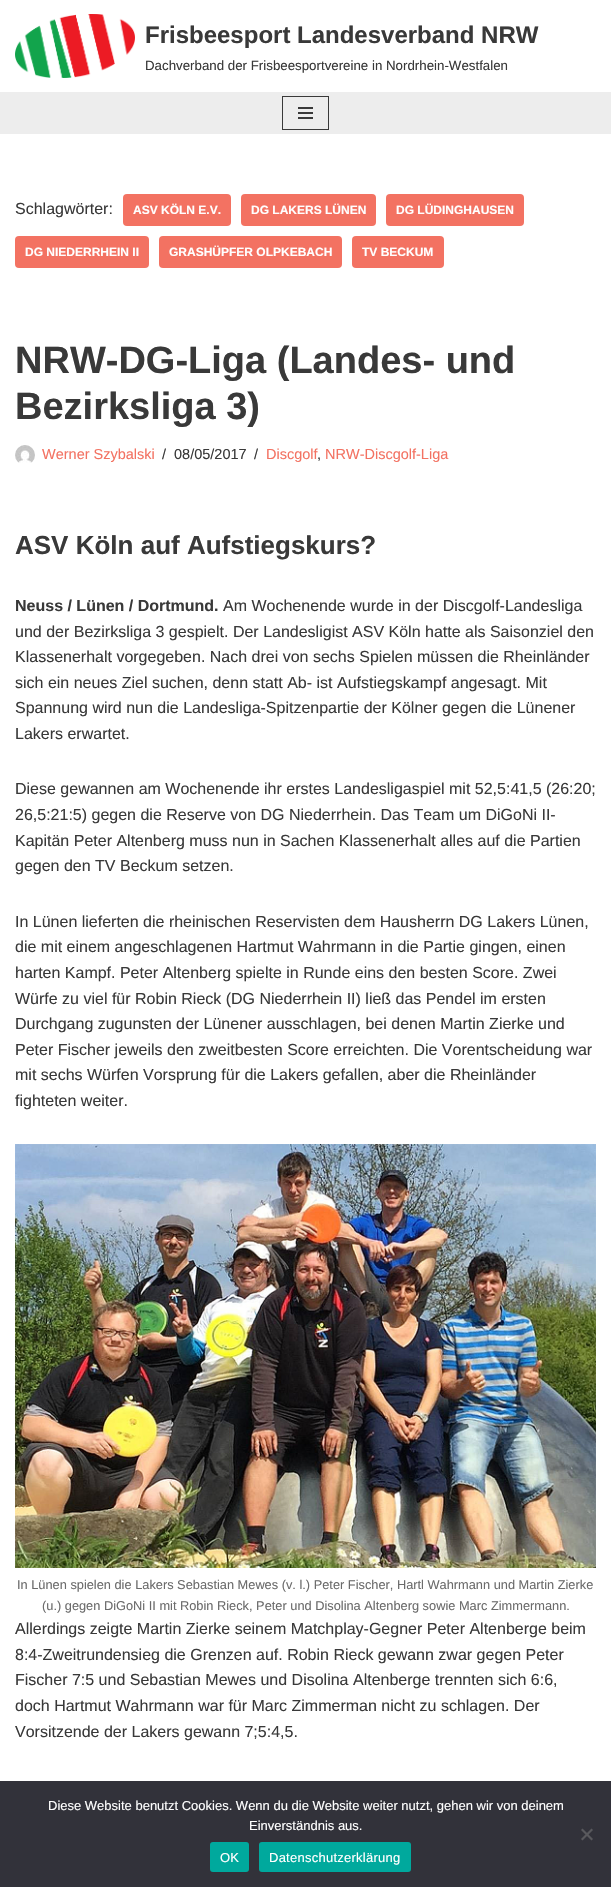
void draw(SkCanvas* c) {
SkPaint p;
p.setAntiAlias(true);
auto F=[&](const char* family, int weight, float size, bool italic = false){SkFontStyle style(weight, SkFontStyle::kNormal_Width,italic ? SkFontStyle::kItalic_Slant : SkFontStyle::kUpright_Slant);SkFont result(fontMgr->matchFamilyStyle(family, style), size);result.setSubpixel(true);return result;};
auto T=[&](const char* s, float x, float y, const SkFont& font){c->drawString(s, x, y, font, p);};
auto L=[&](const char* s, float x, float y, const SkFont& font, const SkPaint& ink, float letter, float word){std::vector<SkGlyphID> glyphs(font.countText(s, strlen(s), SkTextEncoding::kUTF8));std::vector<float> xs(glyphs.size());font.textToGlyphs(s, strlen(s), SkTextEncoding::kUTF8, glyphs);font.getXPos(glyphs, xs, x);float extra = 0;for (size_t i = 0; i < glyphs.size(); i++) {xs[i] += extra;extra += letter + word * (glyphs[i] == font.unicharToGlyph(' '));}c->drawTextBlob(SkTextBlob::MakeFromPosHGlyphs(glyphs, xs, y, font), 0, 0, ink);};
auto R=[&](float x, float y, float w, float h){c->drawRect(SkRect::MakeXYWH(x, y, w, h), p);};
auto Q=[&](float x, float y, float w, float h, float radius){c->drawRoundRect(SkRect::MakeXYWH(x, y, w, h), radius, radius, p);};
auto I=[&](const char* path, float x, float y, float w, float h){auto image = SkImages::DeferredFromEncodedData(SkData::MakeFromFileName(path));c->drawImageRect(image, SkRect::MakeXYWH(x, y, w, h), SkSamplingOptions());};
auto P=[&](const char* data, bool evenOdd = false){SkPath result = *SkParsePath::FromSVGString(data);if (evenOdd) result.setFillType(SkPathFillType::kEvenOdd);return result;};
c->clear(0xffffffff);
I("1.png",15,14,120,64);
auto f1 = F("Liberation Sans",700,24);
p.setColor(0xff393939);
T("Frisbeesport Landesverband NRW",145,43,f1);
auto f2 = F("Liberation Sans",400,13.3);
T("Dachverband der Frisbeesportvereine in Nordrhein-Westfalen",145,70,f2);
p.setColor(0xffededed);
R(0,92,611,42);
p.setStroke(true);
p.setStrokeWidth(1);
p.setColor(0xff393939);
c->drawRect(SkRect::MakeXYWH(282.5,96.5,46,33),p);
p.setStroke(false);
R(298,107,15,2);
R(298,112,15,2);
R(298,117,15,2);
auto f3 = F("Liberation Sans",400,16);
T("Schlagwörter:",15,214,f3);
p.setColor(0xfff37262);
Q(123,194,108,32,4);
auto f4 = F("Liberation Sans",700,12);
p.setColor(0xffffffff);
T("ASV KÖLN E.V.",133,214,f4);
p.setColor(0xfff37262);
Q(241,194,135,32,4);
p.setColor(0xffffffff);
T("DG LAKERS LÜNEN",251,214,f4);
p.setColor(0xfff37262);
Q(386,194,138,32,4);
p.setColor(0xffffffff);
T("DG LÜDINGHAUSEN",396,214,f4);
p.setColor(0xfff37262);
Q(15,236,134,32,4);
p.setColor(0xffffffff);
T("DG NIEDERRHEIN II",25,256,f4);
p.setColor(0xfff37262);
Q(159,236,183,32,4);
p.setColor(0xffffffff);
T("GRASHÜPFER OLPKEBACH",169,256,f4);
p.setColor(0xfff37262);
Q(352,236,92,32,4);
p.setColor(0xffffffff);
T("TV BECKUM",362,256,f4);
auto f5 = F("Liberation Sans",700,38);
p.setColor(0xff393939);
T("NRW-DG-Liga (Landes- und",15,373,f5);
T("Bezirksliga 3)",15,419,f5);
I("2.png",15,445,20,18);
auto f6 = F("Liberation Sans",400,14.5);
p.setColor(0xfff37262);
T("Werner Szybalski",42,459,f6);
p.setColor(0xff393939);
T("/",162,459,f6);
T("08/05/2017",174,459,f6);
T("/",254,459,f6);
p.setColor(0xfff37262);
T("Discgolf",266,459,f6);
p.setColor(0xff393939);
T(",",317,459,f6);
p.setColor(0xfff37262);
T("NRW-Discgolf-Liga",325,459,f6);
auto f7 = F("Liberation Sans",700,26);
p.setColor(0xff393939);
T("ASV Köln auf Aufstiegskurs?",15,554,f7);
auto f8 = F("Liberation Sans",700,16);
T("Neuss / Lünen / Dortmund.",15,611,f8);
T("Am Wochenende wurde in der Discgolf-Landesliga",223,611,f3);
T("und der Bezirksliga 3 gespielt. Der Landesligist ASV Köln hatte als Saisonziel den",15,637,f3);
T("Klassenerhalt vorgegeben. Nach drei von sechs Spielen müssen die Rheinländer",15,662,f3);
T("sich ein neues Ziel suchen, denn statt Ab- ist Aufstiegskampf angesagt. Mit",15,688,f3);
T("Spannung wird nun die Landesliga-Spitzenpartie der Kölner gegen die Lünener",15,713,f3);
T("Lakers erwartet.",15,739,f3);
T("Diese gewannen am Wochenende ihr erstes Landesligaspiel mit 52,5:41,5 (26:20;",15,794,f3);
T("26,5:21:5) gegen die Reserve von DG Niederrhein. Das Team um DiGoNi II-",15,820,f3);
T("Kapitän Peter Altenberg muss nun in Sachen Klassenerhalt alles auf die Partien",15,846,f3);
T("gegen den TV Beckum setzen.",15,871,f3);
T("In Lünen lieferten die rheinischen Reservisten dem Hausherrn DG Lakers Lünen,",15,927,f3);
T("die mit einem angeschlagenen Hartmut Wahrmann in die Partie gingen, einen",15,952,f3);
T("harten Kampf. Peter Altenberg spielte in Runde eins den besten Score. Zwei",15,978,f3);
T("Würfe zu viel für Robin Rieck (DG Niederrhein II) ließ das Pendel im ersten",15,1004,f3);
T("Durchgang zugunsten der Lünener ausschlagen, bei denen Martin Zierke und",15,1029,f3);
T("Peter Fischer jeweils den zweitbesten Score erreichten. Die Vorentscheidung war",15,1055,f3);
T("mit sechs Würfen Vorsprung für die Lakers gefallen, aber die Rheinländer",15,1080,f3);
T("fighteten weiter.",15,1106,f3);
I("3.png",15,1144,581,424);
auto f9 = F("Liberation Sans",400,12.8);
p.setColor(0xff6b6b6b);
T("In Lünen spielen die Lakers Sebastian Mewes (v. l.) Peter Fischer, Hartl Wahrmann und Martin Zierke",17,1589,f9);
T("(u.) gegen DiGoNi II mit Robin Rieck, Peter und Disolina Altenberg sowie Marc Zimmermann.",42,1610,f9);
p.setColor(0xff393939);
T("Allerdings zeigte Martin Zierke seinem Matchplay-Gegner Peter Altenberge beim",15,1634,f3);
T("8:4-Zweitrundensieg die Grenzen auf. Robin Rieck gewann zwar gegen Peter",15,1660,f3);
T("Fischer 7:5 und Sebastian Mewes und Disolina Altenberge trennten sich 6:6,",15,1685,f3);
T("doch Hartmut Wahrmann war für Marc Zimmerman nicht zu schlagen. Der",15,1711,f3);
T("Vorsitzende der Lakers gewann 7;5:4,5.",15,1737,f3);
p.setColor(0xff32323a);
R(0,1781,611,106);
auto f10 = F("Liberation Sans",400,13);
p.setColor(0xffffffff);
T("Diese Website benutzt Cookies. Wenn du die Website weiter nutzt, gehen wir von deinem",48,1810,f10);
T("Einverständnis aus.",249,1830,f10);
p.setColor(0xff59595d);
c->drawPath(P("M591.5 1828.5l1.5 1.5l-10.5 10.5l-1.5-1.5z"),p);
c->drawPath(P("M581 1830l1.5-1.5l10.5 10.5l-1.5 1.5z"),p);
p.setColor(0xff00a99d);
Q(210,1842,39,30,3);
p.setColor(0xffffffff);
L("OK",220,1862,f10,p,.25,0);
p.setColor(0xff00a99d);
Q(259,1842,152,30,3);
p.setColor(0xffffffff);
L("Datenschutzerklärung",269,1862,f10,p,.25,0);
}
